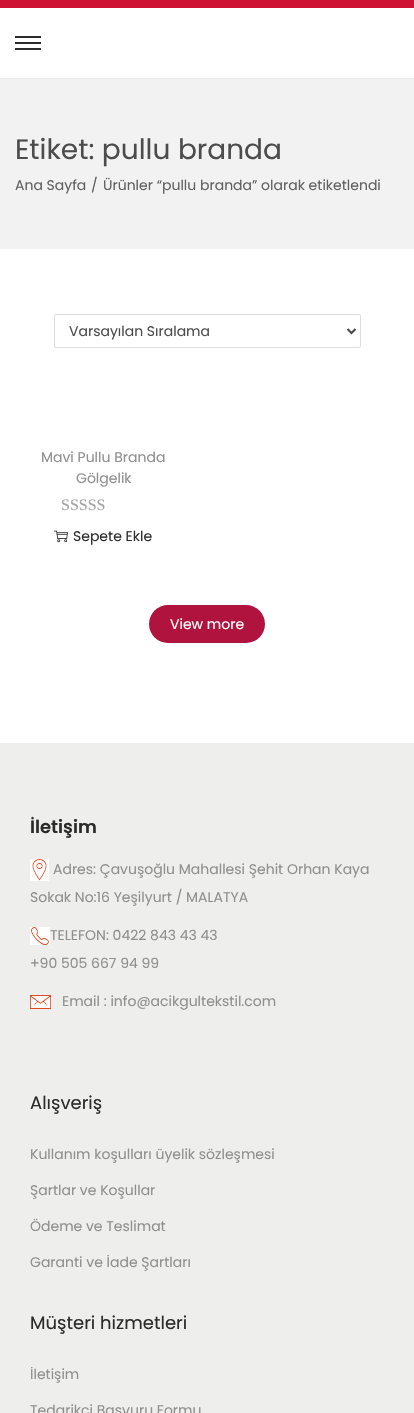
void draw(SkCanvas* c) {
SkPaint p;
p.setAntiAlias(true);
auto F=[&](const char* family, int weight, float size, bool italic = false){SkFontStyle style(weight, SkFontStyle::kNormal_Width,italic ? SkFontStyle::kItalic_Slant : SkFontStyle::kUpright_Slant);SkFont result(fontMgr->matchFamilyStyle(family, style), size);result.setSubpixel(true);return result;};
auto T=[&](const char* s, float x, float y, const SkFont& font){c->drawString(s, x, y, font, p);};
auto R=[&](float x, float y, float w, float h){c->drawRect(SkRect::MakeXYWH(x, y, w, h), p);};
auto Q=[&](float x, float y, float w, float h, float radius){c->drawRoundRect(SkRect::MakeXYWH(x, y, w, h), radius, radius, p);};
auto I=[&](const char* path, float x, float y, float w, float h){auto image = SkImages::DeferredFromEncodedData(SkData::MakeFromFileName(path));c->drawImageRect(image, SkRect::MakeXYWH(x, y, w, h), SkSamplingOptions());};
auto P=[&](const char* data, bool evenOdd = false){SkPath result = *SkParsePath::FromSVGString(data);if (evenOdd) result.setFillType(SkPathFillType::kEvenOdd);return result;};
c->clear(0xffffffff);
p.setColor(0xffcd1233);
R(0,0,414,8);
p.setColor(0xffeaeaea);
R(0,78,414,1);
p.setColor(0xff2b2b2b);
R(15,42,26,2);
R(15,36,26,2);
R(15,48,26,2);
p.setColor(0xfff2f2f2);
R(0,79,414,170);
auto f1 = F("Poppins",400,28);
p.setColor(0xff4c4c4c);
T("Etiket: pullu branda",15,159,f1);
auto f2 = F("Poppins",400,14);
p.setColor(0xff606060);
T("Ana Sayfa",15,190,f2);
T("/",91,190,f2);
T("Ürünler “pullu branda” olarak etiketlendi",103,190,f2);
p.setStroke(true);
p.setStrokeWidth(1);
p.setColor(0xffdddddd);
c->drawRoundRect(SkRect::MakeXYWH(54.5,314.5,306,33),1.5,1.5,p);
p.setStrokeWidth(2);
p.setColor(0xff474747);
c->drawPath(P("M347.5 329l4 4l4-4"),p);
p.setStroke(false);
p.setColor(0xff4c4c4c);
T("Varsayılan Sıralama",69,336,f2);
p.setColor(0xff8f8f8f);
T("Mavi Pullu Branda",41,462,f2);
T("Gölgelik",76,483,f2);
auto f3 = F("Liberation Serif",400,16);
p.setColor(0xffa3a3a3);
T("SSSSS",61,510,f3);
I("1.png",54,530,14,13);
p.setColor(0xff2b2b2b);
T("Sepete Ekle",73,541,f2);
p.setColor(0xffaf133e);
Q(149,605,116,38,19);
p.setColor(0xffffffff);
T("View more",170,629,f2);
p.setColor(0xffeeeeec);
R(0,743,414,670);
auto f4 = F("Poppins",600,18);
p.setColor(0xff2b2b2b);
T("İletişim",30,833,f4);
I("2.png",30,859,19,22);
p.setColor(0xff8f8f8f);
T("Adres: Çavuşoğlu Mahallesi Şehit Orhan Kaya",53,874,f2);
T("Sokak No:16 Yeşilyurt / MALATYA",30,902,f2);
I("3.png",30,927,20,18);
T("TELEFON: 0422 843 43 43",50,940,f2);
T("+90 505 667 94 99",30,968,f2);
I("4.png",30,995,21,14);
T("Email : info@acikgultekstil.com",62,1006,f2);
auto f5 = F("Poppins",400,18);
p.setColor(0xff2b2b2b);
T("Alışveriş",30,1109,f5);
p.setColor(0xff8f8f8f);
T("Kullanım koşulları üyelik sözleşmesi",30,1159,f2);
T("Şartlar ve Koşullar",30,1195,f2);
T("Ödeme ve Teslimat",30,1231,f2);
T("Garanti ve İade Şartları",30,1267,f2);
p.setColor(0xff2b2b2b);
T("Müşteri hizmetleri",30,1329,f5);
p.setColor(0xff8f8f8f);
T("İletişim",30,1379,f2);
T("Tedarikçi Başvuru Formu",30,1415,f2);
}
